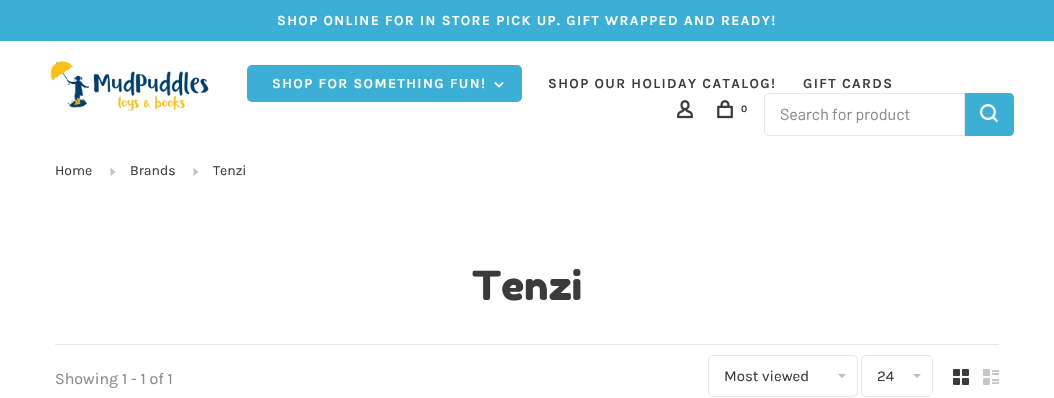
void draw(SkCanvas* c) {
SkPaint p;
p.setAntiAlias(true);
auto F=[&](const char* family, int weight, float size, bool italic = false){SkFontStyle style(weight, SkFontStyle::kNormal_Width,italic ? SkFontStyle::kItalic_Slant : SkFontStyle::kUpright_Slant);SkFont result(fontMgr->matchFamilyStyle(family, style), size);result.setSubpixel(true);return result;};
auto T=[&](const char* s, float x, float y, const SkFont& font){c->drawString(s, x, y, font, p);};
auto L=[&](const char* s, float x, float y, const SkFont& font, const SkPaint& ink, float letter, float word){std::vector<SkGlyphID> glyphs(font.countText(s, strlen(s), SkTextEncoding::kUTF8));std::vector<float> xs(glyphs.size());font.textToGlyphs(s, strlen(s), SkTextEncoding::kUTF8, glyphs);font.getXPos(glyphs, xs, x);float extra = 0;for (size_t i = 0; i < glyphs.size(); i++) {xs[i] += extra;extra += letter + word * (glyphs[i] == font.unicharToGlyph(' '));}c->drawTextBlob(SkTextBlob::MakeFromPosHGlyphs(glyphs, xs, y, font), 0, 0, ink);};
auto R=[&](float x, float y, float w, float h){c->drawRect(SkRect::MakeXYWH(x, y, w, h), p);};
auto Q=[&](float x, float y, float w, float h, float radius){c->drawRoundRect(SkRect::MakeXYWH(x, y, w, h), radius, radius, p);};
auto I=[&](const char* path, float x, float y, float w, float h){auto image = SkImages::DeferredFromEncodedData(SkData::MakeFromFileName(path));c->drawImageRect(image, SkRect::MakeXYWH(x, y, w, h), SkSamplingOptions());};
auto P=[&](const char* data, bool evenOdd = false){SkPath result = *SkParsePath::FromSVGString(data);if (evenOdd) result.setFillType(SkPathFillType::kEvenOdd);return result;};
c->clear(0xffffffff);
p.setColor(0xff3cafd6);
R(0,0,1054,41);
auto f1 = F("Karla",600,14);
p.setColor(0xffffffff);
L("SHOP ONLINE FOR IN STORE PICK UP. GIFT WRAPPED AND READY!",277,25,f1,p,1.4,0);
I("1.png",50,61,159,50);
p.setColor(0xff3cafd6);
Q(247,65,275,37,5);
p.setColor(0xffffffff);
L("SHOP FOR SOMETHING FUN!",272,88,f1,p,1.4,0);
I("2.png",494,82,10,6);
p.setColor(0xff3b3b3b);
L("SHOP OUR HOLIDAY CATALOG!",548,88,f1,p,1.4,0);
L("GIFT CARDS",803,88,f1,p,1.4,0);
I("3.png",677,100,16,19);
I("4.png",717,100,16,19);
auto f2 = F("Karla",600,10);
L("0",741,112,f2,p,1.4,0);
p.setStroke(true);
p.setStrokeWidth(1);
p.setColor(0xffe6e6e6);
c->drawPath(P("M769 93.5h195.5v42h-195.5c-2.5 0-4.5-2-4.5-4.5v-33c0-2.5 2-4.5 4.5-4.5z"),p);
auto f3 = F("Barlow",400,16);
p.setStroke(false);
p.setColor(0xff898989);
T("Search for product",780,120,f3);
p.setColor(0xff3cafd6);
c->drawPath(P("M965 93h44c3 0 5 2 5 5v33c0 3-2 5-5 5h-44z"),p);
I("5.png",980,104,18,19);
auto f4 = F("Karla",400,14);
p.setColor(0xff3b3b3b);
T("Home",55,175,f4);
p.setColor(0xffc4c4c4);
c->drawPath(P("M110.5 176l5-4l-5-4.5z"),p);
p.setColor(0xff3b3b3b);
T("Brands",130,175,f4);
p.setColor(0xffc4c4c4);
c->drawPath(P("M193.5 176l5-4l-5-4.5z"),p);
p.setColor(0xff3b3b3b);
T("Tenzi",213,175,f4);
auto f5 = F("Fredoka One",400,40);
T("Tenzi",472,300,f5);
p.setColor(0xffe6e6e6);
R(55,344,944,1);
auto f6 = F("Karla",400,16);
p.setColor(0xff898989);
T("Showing 1 - 1 of 1",55,384,f6);
p.setStroke(true);
p.setColor(0xffe6e6e6);
c->drawRoundRect(SkRect::MakeXYWH(708.5,355.5,149,41),4.5,4.5,p);
auto f7 = F("Karla",400,15);
p.setStroke(false);
p.setColor(0xff3b3b3b);
T("Most viewed",724,381,f7);
p.setColor(0xffbbbbbb);
c->drawPath(P("M838 374h8l-4 4z"),p);
p.setStroke(true);
p.setColor(0xffe6e6e6);
c->drawRoundRect(SkRect::MakeXYWH(861.5,355.5,71,41),4.5,4.5,p);
p.setStroke(false);
p.setColor(0xff3b3b3b);
T("24",877,381,f7);
p.setColor(0xffbbbbbb);
c->drawPath(P("M913 374h8l-4 4z"),p);
I("6.png",953,369,16,16);
I("7.png",983,369,16,16);
}
